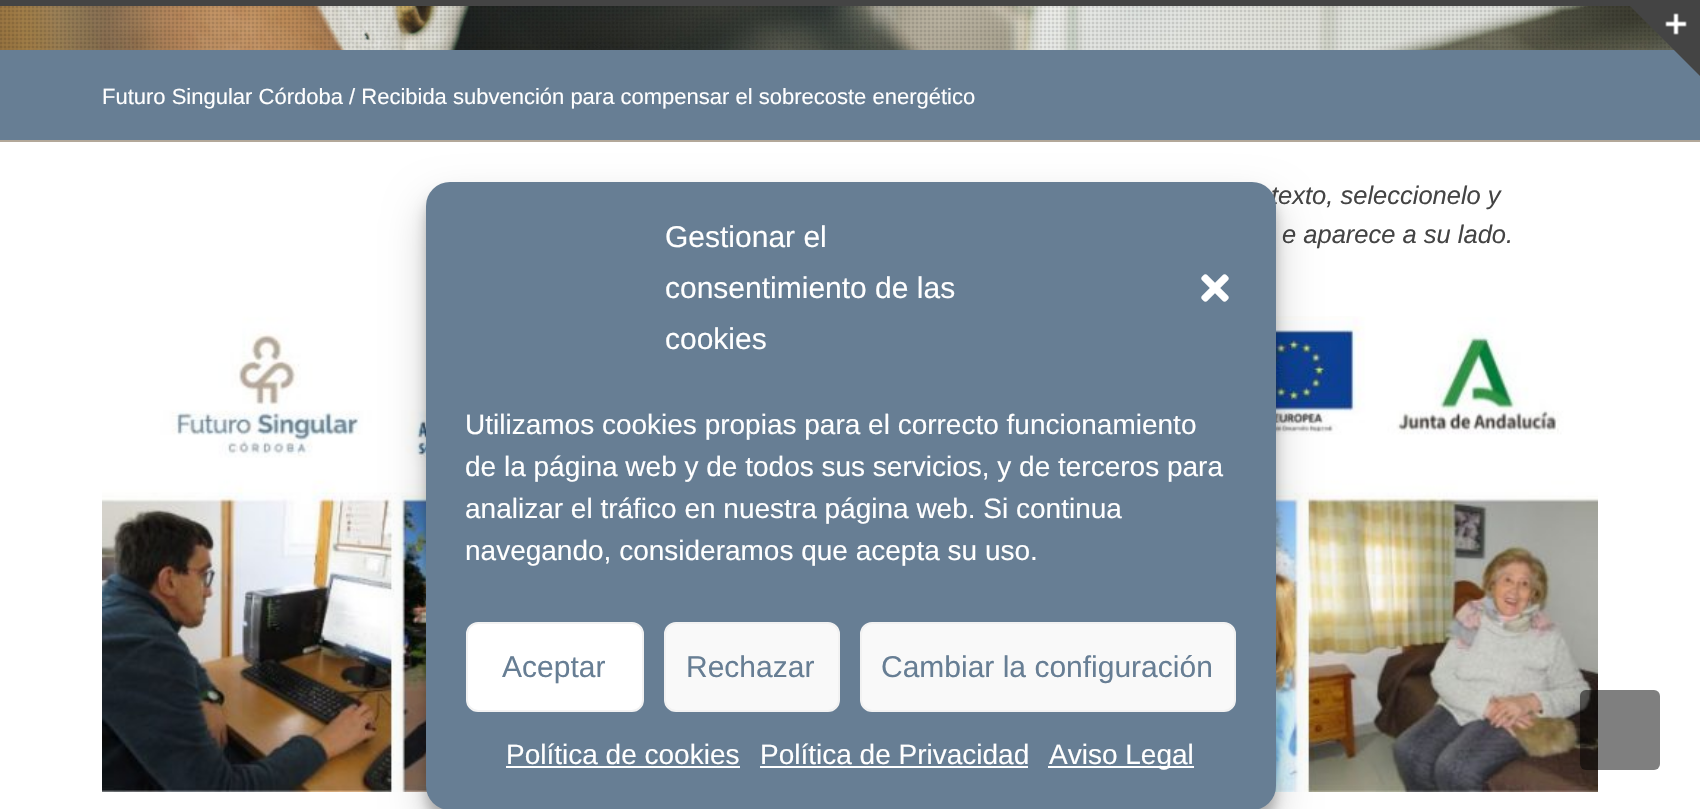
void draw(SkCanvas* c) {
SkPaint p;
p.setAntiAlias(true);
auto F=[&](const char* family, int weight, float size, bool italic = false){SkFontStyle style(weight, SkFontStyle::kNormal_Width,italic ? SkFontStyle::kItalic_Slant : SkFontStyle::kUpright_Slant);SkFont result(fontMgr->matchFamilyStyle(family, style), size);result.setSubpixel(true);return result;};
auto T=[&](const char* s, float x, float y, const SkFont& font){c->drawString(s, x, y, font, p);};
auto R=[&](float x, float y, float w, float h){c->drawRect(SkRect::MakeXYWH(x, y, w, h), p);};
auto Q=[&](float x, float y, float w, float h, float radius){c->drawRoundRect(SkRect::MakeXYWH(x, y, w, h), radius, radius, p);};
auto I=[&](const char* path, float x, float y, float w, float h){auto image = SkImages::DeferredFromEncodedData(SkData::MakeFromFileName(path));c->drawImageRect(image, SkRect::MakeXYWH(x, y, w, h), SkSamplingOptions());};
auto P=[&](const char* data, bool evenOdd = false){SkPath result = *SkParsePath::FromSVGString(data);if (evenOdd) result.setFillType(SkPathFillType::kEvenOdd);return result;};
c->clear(0xffffffff);
p.setColor(0xff444444);
R(0,0,1630,6);
I("2.png",0,6,1674,44);
I("3.png",0,6,1674,44);
p.setColor(0xff677e94);
R(0,50,1700,90);
p.setColor(0xff444444);
c->drawPath(P("M1700-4v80l-80-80z"),p);
I("1.png",1665,13,22,22);
p.setColor(0xffb3a899);
R(0,140,1700,2);
auto f1 = F("Liberation Sans",400,22);
p.setColor(0xffffffff);
T("Futuro Singular Córdoba / Recibida subvención para compensar el sobrecoste energético",102,104,f1);
auto f2 = F("Liberation Sans",400,25.5,true);
p.setColor(0xff444444);
T("texto, seleccionelo y",1271,204,f2);
T("e aparece a su lado.",1282,243,f2);
I("4.png",102,316,1496,476);
p.setColor(0x3b000000);
p.setMaskFilter(SkMaskFilter::MakeBlur(kNormal_SkBlurStyle, 6));
c->drawRoundRect(SkRect::MakeXYWH(426,194,850,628),24,24,p);
p.setMaskFilter(nullptr);
p.setColor(0x30000000);
p.setMaskFilter(SkMaskFilter::MakeBlur(kNormal_SkBlurStyle, 20));
c->drawRoundRect(SkRect::MakeXYWH(426,202,850,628),24,24,p);
p.setMaskFilter(nullptr);
p.setColor(0xff677e94);
Q(426,182,850,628,24);
auto f3 = F("Liberation Sans",400,30);
p.setColor(0xffffffff);
T("Gestionar el",665,247,f3);
T("consentimiento de las",665,298,f3);
T("cookies",665,349,f3);
I("5.png",1201,274,28,28);
auto f4 = F("Liberation Sans",400,28);
T("Utilizamos cookies propias para el correcto funcionamiento",465,434,f4);
T("de la página web y de todos sus servicios, y de terceros para",465,476,f4);
T("analizar el tráfico en nuestra página web. Si continua",465,518,f4);
T("navegando, consideramos que acepta su uso.",465,560,f4);
c->drawRoundRect(SkRect::MakeXYWH(467,623,176,88),11,11,p);
p.setStroke(true);
p.setStrokeWidth(2);
p.setColor(0xfff2f2f2);
c->drawRoundRect(SkRect::MakeXYWH(467,623,176,88),11,11,p);
p.setStroke(false);
p.setColor(0xff677e94);
T("Aceptar",502,677,f3);
p.setColor(0xfff9f9f9);
c->drawRoundRect(SkRect::MakeXYWH(665,623,174,88),11,11,p);
p.setStroke(true);
p.setColor(0xfff2f2f2);
c->drawRoundRect(SkRect::MakeXYWH(665,623,174,88),11,11,p);
p.setStroke(false);
p.setColor(0xff677e94);
T("Rechazar",686,677,f3);
p.setColor(0xfff9f9f9);
c->drawRoundRect(SkRect::MakeXYWH(861,623,374,88),11,11,p);
p.setStroke(true);
p.setColor(0xfff2f2f2);
c->drawRoundRect(SkRect::MakeXYWH(861,623,374,88),11,11,p);
p.setStroke(false);
p.setColor(0xff677e94);
T("Cambiar la configuración",881,677,f3);
p.setColor(0xffffffff);
T("Política de cookies",506,764,f4);
R(506,766,234,2);
T("Política de Privacidad",760,764,f4);
R(760,766,268,2);
R(1048,766,146,2);
T("Aviso Legal",1049,764,f4);
p.setColor(0x80000000);
Q(1580,690,80,80,6);
}
